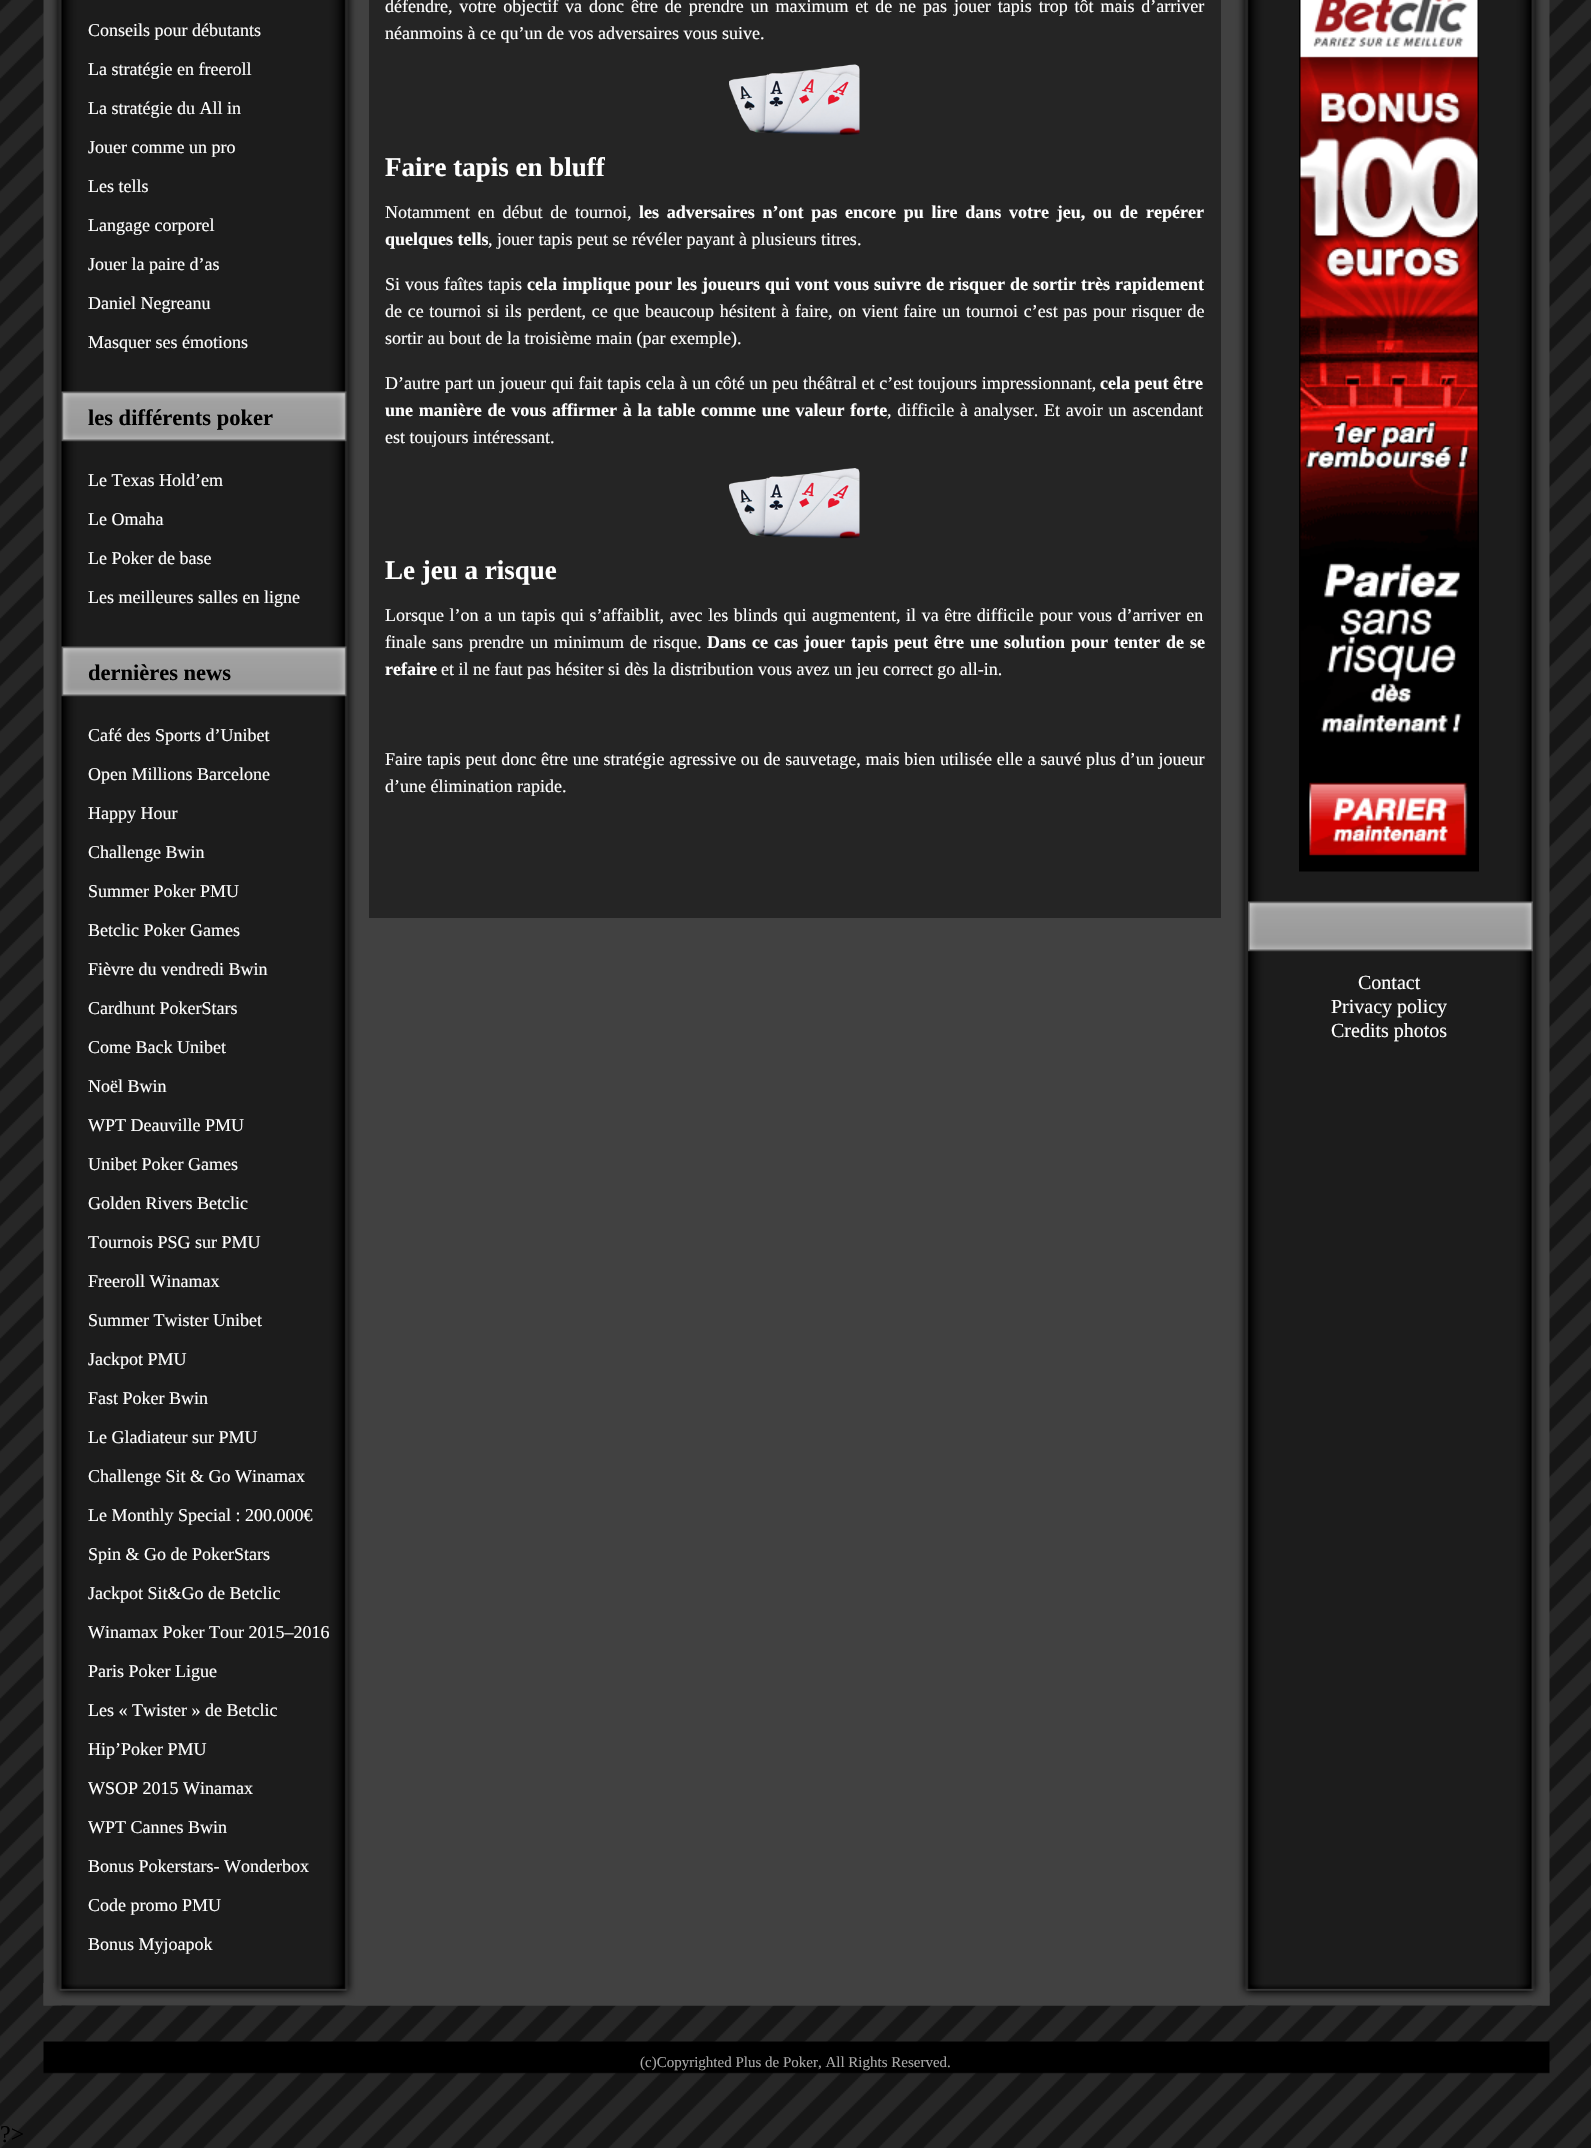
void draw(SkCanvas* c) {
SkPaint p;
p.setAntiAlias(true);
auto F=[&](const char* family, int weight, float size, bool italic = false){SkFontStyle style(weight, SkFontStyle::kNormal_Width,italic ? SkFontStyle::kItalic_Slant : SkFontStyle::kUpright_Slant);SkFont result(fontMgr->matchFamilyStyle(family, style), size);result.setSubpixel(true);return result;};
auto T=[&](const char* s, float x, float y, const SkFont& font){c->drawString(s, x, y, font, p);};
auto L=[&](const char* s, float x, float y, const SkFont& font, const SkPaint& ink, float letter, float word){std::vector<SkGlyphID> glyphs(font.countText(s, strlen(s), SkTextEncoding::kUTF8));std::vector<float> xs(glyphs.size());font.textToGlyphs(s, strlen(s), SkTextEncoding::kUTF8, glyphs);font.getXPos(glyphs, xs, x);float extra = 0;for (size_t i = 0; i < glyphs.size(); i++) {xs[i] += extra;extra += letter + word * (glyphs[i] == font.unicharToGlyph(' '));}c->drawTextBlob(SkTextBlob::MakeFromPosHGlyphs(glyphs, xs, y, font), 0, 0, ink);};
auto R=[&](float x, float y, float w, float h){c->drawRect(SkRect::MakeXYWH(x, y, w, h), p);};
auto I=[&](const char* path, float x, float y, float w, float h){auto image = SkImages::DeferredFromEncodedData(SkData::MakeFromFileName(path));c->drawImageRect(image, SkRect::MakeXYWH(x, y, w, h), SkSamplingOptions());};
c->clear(0xffffffff);
I("1.png",0,0,1591,2148);
I("2.png",43,0,1507,2006);
I("3.png",43,1983,1507,23);
auto f1 = F("Liberation Serif",400,18);
p.setColor(0xffffffff);
T("Conseils pour débutants",88,36,f1);
T("La stratégie en freeroll",88,75,f1);
T("La stratégie du All in",88,114,f1);
T("Jouer comme un pro",88,153,f1);
T("Les tells",88,192,f1);
T("Langage corporel",88,231,f1);
T("Jouer la paire d’as",88,270,f1);
T("Daniel Negreanu",88,309,f1);
T("Masquer ses émotions",88,348,f1);
I("4.png",61,391,286,51);
auto f2 = F("Liberation Serif",700,22.5);
p.setColor(0xff000000);
T("les différents poker",88,425,f2);
p.setColor(0xffffffff);
T("Le Texas Hold’em",88,486,f1);
T("Le Omaha",88,525,f1);
T("Le Poker de base",88,564,f1);
T("Les meilleures salles en ligne",88,603,f1);
I("4.png",61,646,286,51);
p.setColor(0xff000000);
T("dernières news",88,680,f2);
p.setColor(0xffffffff);
T("Café des Sports d’Unibet",88,741,f1);
T("Open Millions Barcelone",88,780,f1);
T("Happy Hour",88,819,f1);
T("Challenge Bwin",88,858,f1);
T("Summer Poker PMU",88,897,f1);
T("Betclic Poker Games",88,936,f1);
T("Fièvre du vendredi Bwin",88,975,f1);
T("Cardhunt PokerStars",88,1014,f1);
T("Come Back Unibet",88,1053,f1);
T("Noël Bwin",88,1092,f1);
T("WPT Deauville PMU",88,1131,f1);
T("Unibet Poker Games",88,1170,f1);
T("Golden Rivers Betclic",88,1209,f1);
T("Tournois PSG sur PMU",88,1248,f1);
T("Freeroll Winamax",88,1287,f1);
T("Summer Twister Unibet",88,1326,f1);
T("Jackpot PMU",88,1365,f1);
T("Fast Poker Bwin",88,1404,f1);
T("Le Gladiateur sur PMU",88,1443,f1);
T("Challenge Sit & Go Winamax",88,1482,f1);
T("Le Monthly Special : 200.000€",88,1521,f1);
T("Spin & Go de PokerStars",88,1560,f1);
T("Jackpot Sit&Go de Betclic",88,1599,f1);
T("Winamax Poker Tour 2015–2016",88,1638,f1);
T("Paris Poker Ligue",88,1677,f1);
T("Les « Twister » de Betclic",88,1716,f1);
T("Hip’Poker PMU",88,1755,f1);
T("WSOP 2015 Winamax",88,1794,f1);
T("WPT Cannes Bwin",88,1833,f1);
T("Bonus Pokerstars- Wonderbox",88,1872,f1);
T("Code promo PMU",88,1911,f1);
T("Bonus Myjoapok",88,1950,f1);
p.setColor(0xff252525);
R(369,0,852,918);
p.setColor(0xffffffff);
L("défendre, votre objectif va donc être de prendre un maximum et de ne pas jouer tapis trop tôt mais d’arriver",385,12,f1,p,0,2.4);
T("néanmoins à ce qu’un de vos adversaires vous suive.",385,39,f1);
I("5.png",729,64,131,71);
auto f3 = F("Liberation Serif",700,27);
T("Faire tapis en bluff",385,176,f3);
L("Notamment en début de tournoi,",385,218,f1,p,0,3.25);
auto f4 = F("Liberation Serif",700,18);
L("les adversaires n’ont pas encore pu lire dans votre jeu, ou de",639,218,f4,p,0,3.25);
T("repérer",1146,218,f4);
T("quelques tells",385,245,f4);
T(", jouer tapis peut se révéler payant à plusieurs titres.",488,245,f1);
L("Si vous faîtes tapis",385,290,f1,p,0,.5);
L("cela implique",527,290,f4,p,0,1);
L("pour les joueurs qui vont vous suivre de risquer de sortir très rapidement",635,290,f4,p,0,.5);
L("de ce tournoi si ils perdent, ce que beaucoup hésitent à faire, on vient faire un tournoi c’est pas pour risquer de",385,317,f1,p,0,1.2);
T("sortir au bout de la troisième main (par exemple).",385,344,f1);
L("D’autre part un joueur qui fait tapis cela à un côté un peu théâtral et c’est toujours impressionnant,",385,389,f1,p,0,.2);
T("cela peut être",1100,389,f4);
L("une manière de vous affirmer à la table comme une valeur forte",385,416,f4,p,0,1.25);
L(", difficile à analyser. Et avoir un ascendant",887,416,f1,p,0,1.25);
T("est toujours intéressant.",385,443,f1);
I("6.png",729,468,131,71);
T("Le jeu a risque",385,579,f3);
L("Lorsque l’on a un tapis qui s’affaiblit, avec les blinds qui augmentent, il va être difficile pour vous d’arriver en",385,621,f1,p,0,1.1);
L("finale sans prendre un minimum de risque.",385,648,f1,p,0,1.5);
L("Dans ce cas jouer tapis peut être une solution pour tenter de se",707,648,f4,p,0,1.5);
T("refaire",385,675,f4);
T("et il ne faut pas hésiter si dès la distribution vous avez un jeu correct go all-in.",441,675,f1);
L("Faire tapis peut donc être une stratégie agressive ou de sauvetage, mais bien utilisée elle a sauvé plus d’un joueur",385,765,f1,p,0,.25);
T("d’une élimination rapide.",385,792,f1);
I("7.png",1299,0,180,872);
I("8.png",1248,901,285,51);
auto f5 = F("Liberation Serif",400,20);
T("Contact",1358,989,f5);
T("Privacy policy",1331,1013,f5);
T("Credits photos",1331,1037,f5);
I("9.png",43,2041,1507,33);
auto f6 = F("Liberation Serif",400,15);
p.setColor(0xffa8a8a8);
T("(c)Copyrighted Plus de Poker, All Rights Reserved.",640,2067,f6);
auto f7 = F("Liberation Serif",400,24);
p.setColor(0xff000000);
T("?>",0,2142,f7);
}
